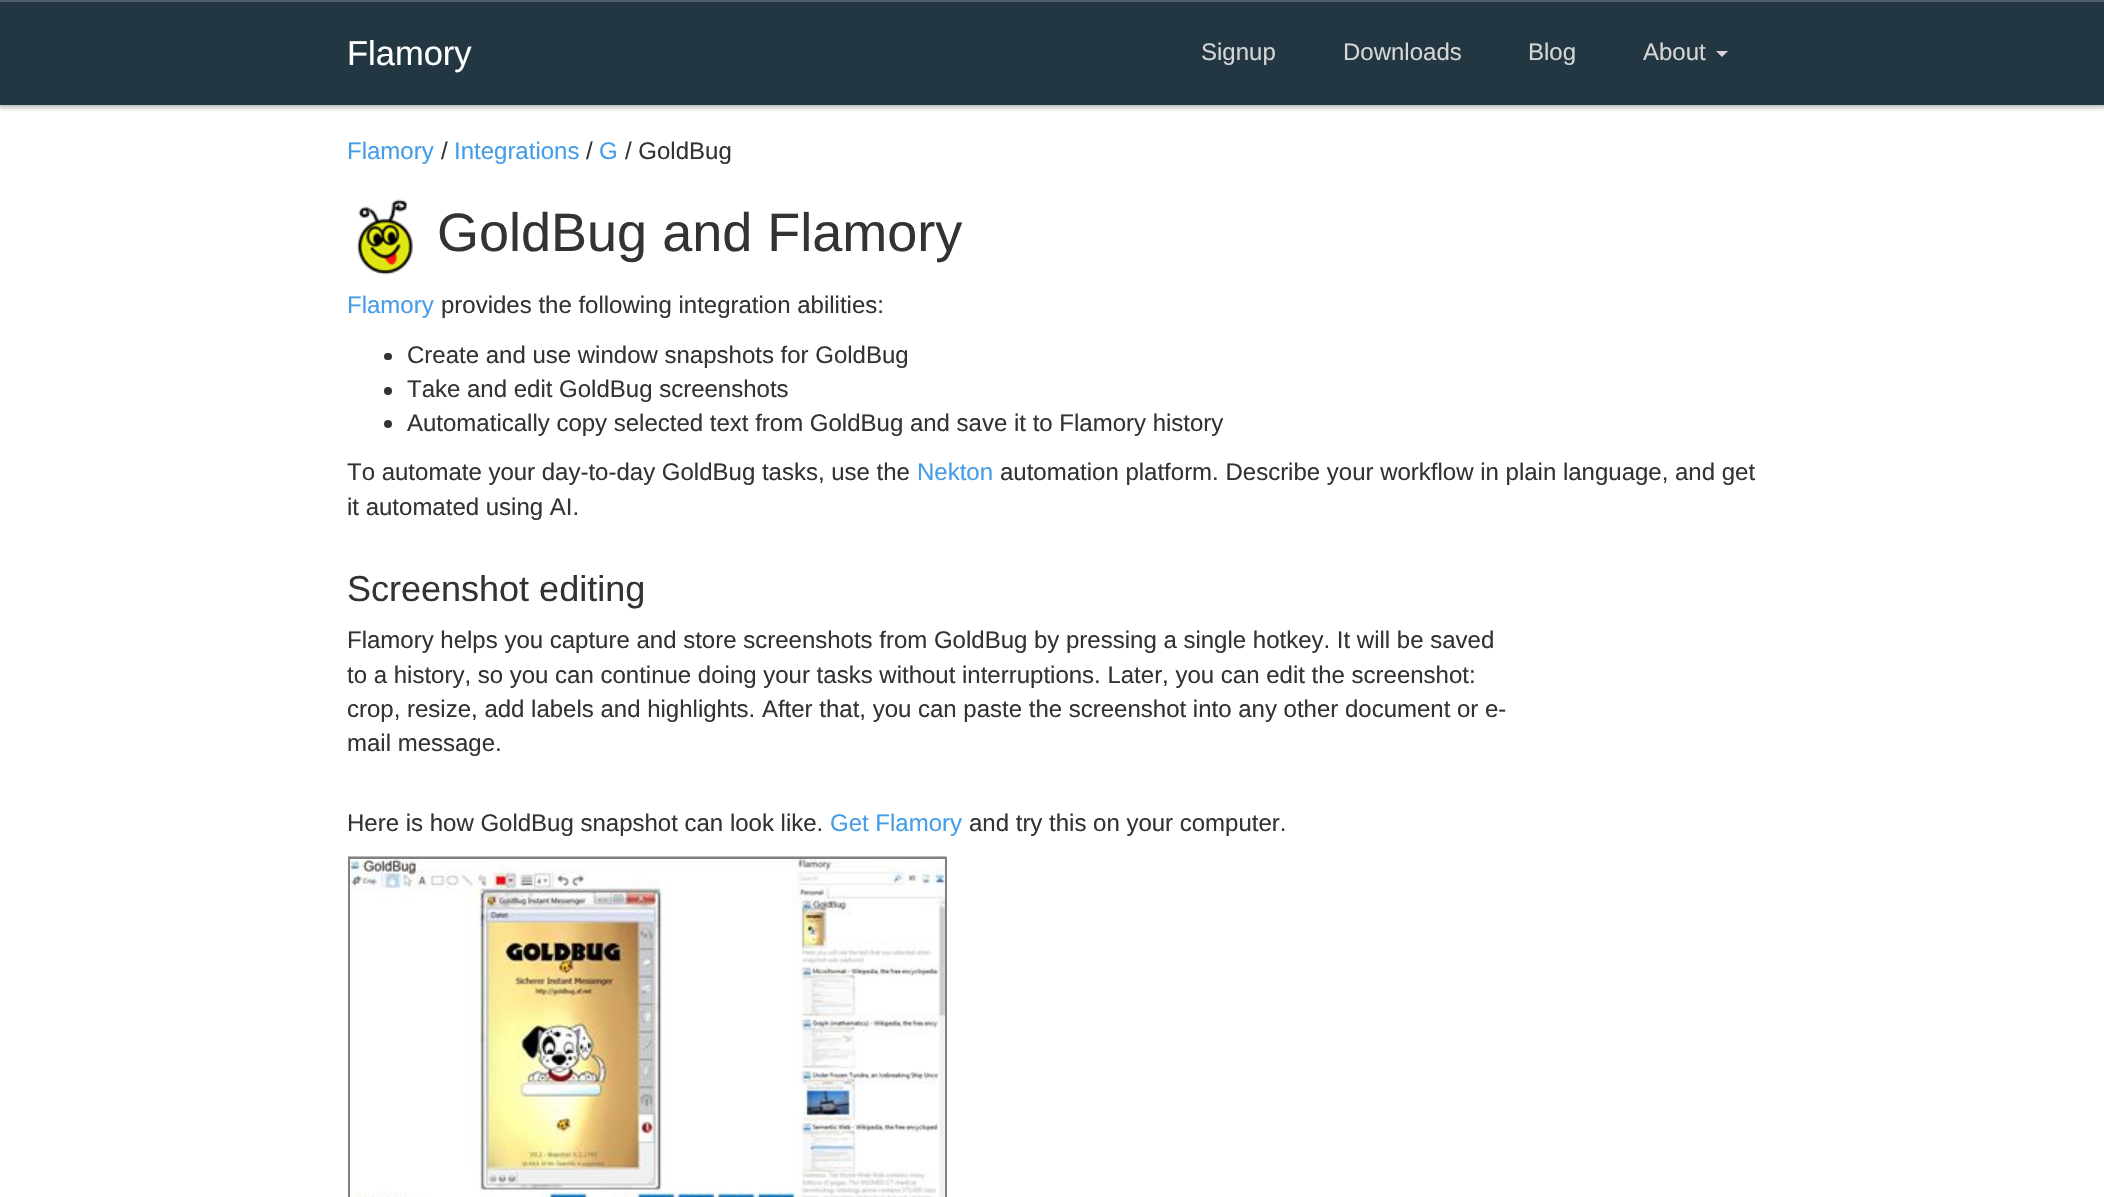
void draw(SkCanvas* c) {
SkPaint p;
p.setAntiAlias(true);
auto F=[&](const char* family, int weight, float size, bool italic = false){SkFontStyle style(weight, SkFontStyle::kNormal_Width,italic ? SkFontStyle::kItalic_Slant : SkFontStyle::kUpright_Slant);SkFont result(fontMgr->matchFamilyStyle(family, style), size);result.setSubpixel(true);return result;};
auto T=[&](const char* s, float x, float y, const SkFont& font){c->drawString(s, x, y, font, p);};
auto R=[&](float x, float y, float w, float h){c->drawRect(SkRect::MakeXYWH(x, y, w, h), p);};
auto Q=[&](float x, float y, float w, float h, float radius){c->drawRoundRect(SkRect::MakeXYWH(x, y, w, h), radius, radius, p);};
auto I=[&](const char* path, float x, float y, float w, float h){auto image = SkImages::DeferredFromEncodedData(SkData::MakeFromFileName(path));c->drawImageRect(image, SkRect::MakeXYWH(x, y, w, h), SkSamplingOptions());};
auto P=[&](const char* data, bool evenOdd = false){SkPath result = *SkParsePath::FromSVGString(data);if (evenOdd) result.setFillType(SkPathFillType::kEvenOdd);return result;};
c->clear(0xffffffff);
p.setColor(0x4d2e2e2e);
p.setMaskFilter(SkMaskFilter::MakeBlur(kNormal_SkBlurStyle, 2));
c->drawRect(SkRect::MakeXYWH(-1,0,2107,108),p);
p.setMaskFilter(nullptr);
p.setColor(0xff223741);
R(0,2,2104,103);
p.setColor(0xff4e5f67);
R(0,0,2104,2);
auto f1 = F("Liberation Sans",400,34.5);
p.setColor(0xffffffff);
T("Flamory",347,65,f1);
auto f2 = F("Liberation Sans",400,24);
p.setColor(0xffd5d5d5);
T("Signup",1201,60,f2);
T("Downloads",1343,60,f2);
T("Blog",1528,60,f2);
T("About",1643,60,f2);
c->drawPath(P("M1716 51h12l-6 6z"),p);
p.setColor(0xff459ce7);
T("Flamory",347,159,f2);
p.setColor(0xff333333);
T("/",441,159,f2);
p.setColor(0xff459ce7);
T("Integrations",454,159,f2);
p.setColor(0xff333333);
T("/",586,159,f2);
p.setColor(0xff459ce7);
T("G",599,159,f2);
p.setColor(0xff333333);
T("/ GoldBug",625,159,f2);
I("1.png",357,199,56,76);
auto f3 = F("Liberation Sans",400,54);
T("GoldBug and Flamory",437,251,f3);
p.setColor(0xff459ce7);
T("Flamory",347,313,f2);
p.setColor(0xff333333);
T("provides the following integration abilities:",441,313,f2);
Q(384,353,8,7,3.5);
T("Create and use window snapshots for GoldBug",407,363,f2);
c->drawCircle(388,391,4,p);
T("Take and edit GoldBug screenshots",407,397,f2);
c->drawCircle(388,424,4,p);
T("Automatically copy selected text from GoldBug and save it to Flamory history",407,431,f2);
T("To automate your day-to-day GoldBug tasks, use the",347,480,f2);
p.setColor(0xff459ce7);
T("Nekton",917,480,f2);
p.setColor(0xff333333);
T("automation platform. Describe your workflow in plain language, and get",1000,480,f2);
T("it automated using AI.",347,515,f2);
auto f4 = F("Liberation Sans",400,36);
T("Screenshot editing",347,601,f4);
T("Flamory helps you capture and store screenshots from GoldBug by pressing a single hotkey. It will be saved",347,648,f2);
T("to a history, so you can continue doing your tasks without interruptions. Later, you can edit the screenshot:",347,683,f2);
T("crop, resize, add labels and highlights. After that, you can paste the screenshot into any other document or e-",347,717,f2);
T("mail message.",347,751,f2);
T("Here is how GoldBug snapshot can look like.",347,831,f2);
p.setColor(0xff459ce7);
T("Get Flamory",830,831,f2);
p.setColor(0xff333333);
T("and try this on your computer.",969,831,f2);
I("2.png",348,856,599,341);
p.setStroke(true);
p.setStrokeWidth(2);
p.setColor(0xff808080);
c->drawRect(SkRect::MakeXYWH(349,858,597,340),p);
}
